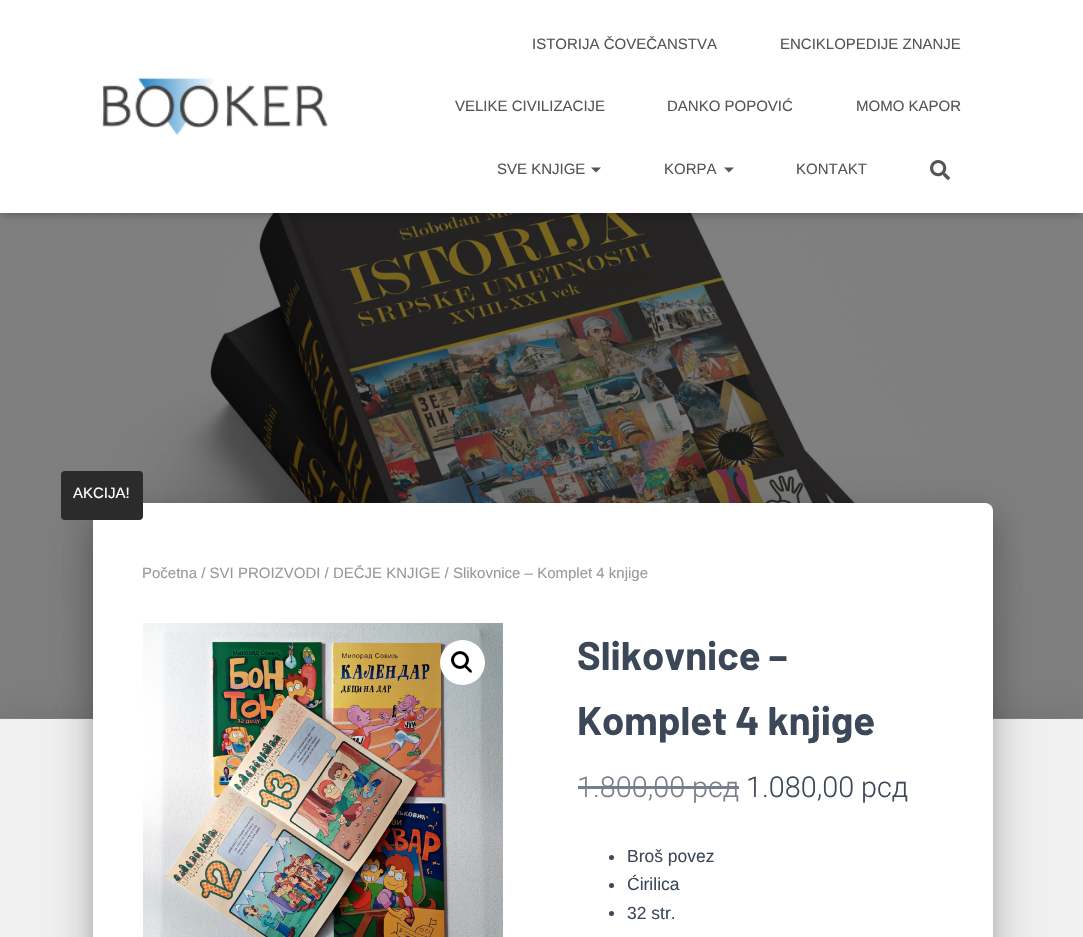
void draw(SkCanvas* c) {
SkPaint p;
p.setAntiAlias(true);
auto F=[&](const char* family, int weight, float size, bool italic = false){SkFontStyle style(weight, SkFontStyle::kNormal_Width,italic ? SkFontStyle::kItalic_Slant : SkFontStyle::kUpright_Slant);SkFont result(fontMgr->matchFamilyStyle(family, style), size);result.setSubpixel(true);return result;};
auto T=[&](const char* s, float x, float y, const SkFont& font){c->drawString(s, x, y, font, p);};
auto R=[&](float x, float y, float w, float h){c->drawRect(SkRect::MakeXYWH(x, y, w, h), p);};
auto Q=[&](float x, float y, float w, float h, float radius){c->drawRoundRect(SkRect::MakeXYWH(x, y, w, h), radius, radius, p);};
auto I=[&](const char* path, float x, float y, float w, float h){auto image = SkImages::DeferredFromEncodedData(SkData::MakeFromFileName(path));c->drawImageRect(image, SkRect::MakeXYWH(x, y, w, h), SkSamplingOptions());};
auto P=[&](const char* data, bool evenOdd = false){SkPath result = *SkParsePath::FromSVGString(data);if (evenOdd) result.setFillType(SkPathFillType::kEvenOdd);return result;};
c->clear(0xffffffff);
I("3.png",0,213,1083,506);
p.setColor(0x1a000000);
p.setMaskFilter(SkMaskFilter::MakeBlur(kNormal_SkBlurStyle, 3));
c->drawRect(SkRect::MakeXYWH(3,8,1078,207),p);
p.setMaskFilter(nullptr);
p.setColor(0x1f000000);
p.setMaskFilter(SkMaskFilter::MakeBlur(kNormal_SkBlurStyle, 6));
c->drawRect(SkRect::MakeXYWH(0,1,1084,213),p);
p.setMaskFilter(nullptr);
p.setColor(0x6b000000);
p.setMaskFilter(SkMaskFilter::MakeBlur(kNormal_SkBlurStyle, 6));
c->drawRect(SkRect::MakeXYWH(8,9,1068,197),p);
p.setMaskFilter(nullptr);
p.setColor(0xffffffff);
R(0,0,1083,213);
I("1.png",102,78,226,57);
auto f1 = F("Liberation Sans",400,15);
p.setColor(0xff555555);
T("ISTORIJA ČOVEČANSTVA",532,49,f1);
T("ENCIKLOPEDIJE ZNANJE",780,49,f1);
T("VELIKE CIVILIZACIJE",455,111,f1);
T("DANKO POPOVIĆ",667,111,f1);
T("MOMO KAPOR",856,111,f1);
T("SVE KNJIGE",497,174,f1);
c->drawPath(P("M591 167.5h10l-5 5z"),p);
T("KORPA",664,174,f1);
c->drawPath(P("M724 167.5h10l-5 5z"),p);
T("KONTAKT",796,174,f1);
I("2.png",930,160,20,20);
p.setColor(0x1f000000);
p.setMaskFilter(SkMaskFilter::MakeBlur(kNormal_SkBlurStyle, 19));
c->drawRect(SkRect::MakeXYWH(-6,720,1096,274),p);
p.setMaskFilter(nullptr);
p.setColor(0xfff0f0f0);
R(0,719,1083,218);
p.setColor(0x33000000);
p.setMaskFilter(SkMaskFilter::MakeBlur(kNormal_SkBlurStyle, 6));
c->drawRoundRect(SkRect::MakeXYWH(99,519,887,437),1,1,p);
p.setMaskFilter(nullptr);
p.setColor(0x1f000000);
p.setMaskFilter(SkMaskFilter::MakeBlur(kNormal_SkBlurStyle, 19));
c->drawRoundRect(SkRect::MakeXYWH(86,504,913,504),14,14,p);
p.setMaskFilter(nullptr);
p.setColor(0x24000000);
p.setMaskFilter(SkMaskFilter::MakeBlur(kNormal_SkBlurStyle, 15));
c->drawRoundRect(SkRect::MakeXYWH(90,520,905,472),10,10,p);
p.setMaskFilter(nullptr);
p.setColor(0xffffffff);
Q(93,503,900,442,8);
p.setColor(0xff2b2b2b);
Q(61,471,82,49,4);
p.setColor(0xffffffff);
T("AKCIJA!",73,498,f1);
I("4.png",143,623,360,314);
c->drawCircle(462.5,662.5,22.5,p);
p.setStroke(true);
p.setStrokeWidth(3);
p.setColor(0xff000000);
c->drawCircle(460,660,7.5,p);
p.setStroke(false);
c->drawPath(P("M464.5 665c1.5-1 3.5 2 4.5 3c1 .5 4 3 2.5 4.5c-1.5 1-3.5-2-4.5-3c-.5-.5-4-3-2.5-4.5z"),p);
p.setColor(0xff999999);
T("Početna / SVI PROIZVODI / DEČJE KNJIGE / Slikovnice – Komplet 4 knjige",142,578,f1);
auto f2 = F("Barlow",700,40);
p.setColor(0xff3c4858);
T("Slikovnice –",577,670,f2);
T("Komplet 4 knjige",577,735,f2);
auto f3 = F("Roboto",300,28.75);
p.setColor(0xff777f8a);
T("1.800,00 рсд",577,797,f3);
R(578,786,161,3);
p.setColor(0xff3c4858);
T("1.080,00 рсд",746,797,f3);
c->drawCircle(611.5,857.5,2.5,p);
auto f4 = F("Liberation Sans",400,17.5);
T("Broš povez",627,862,f4);
c->drawCircle(611.5,885.5,2.5,p);
T("Ćirilica",627,890,f4);
c->drawCircle(611.5,913.5,2.5,p);
T("32 str.",627,919,f4);
}
